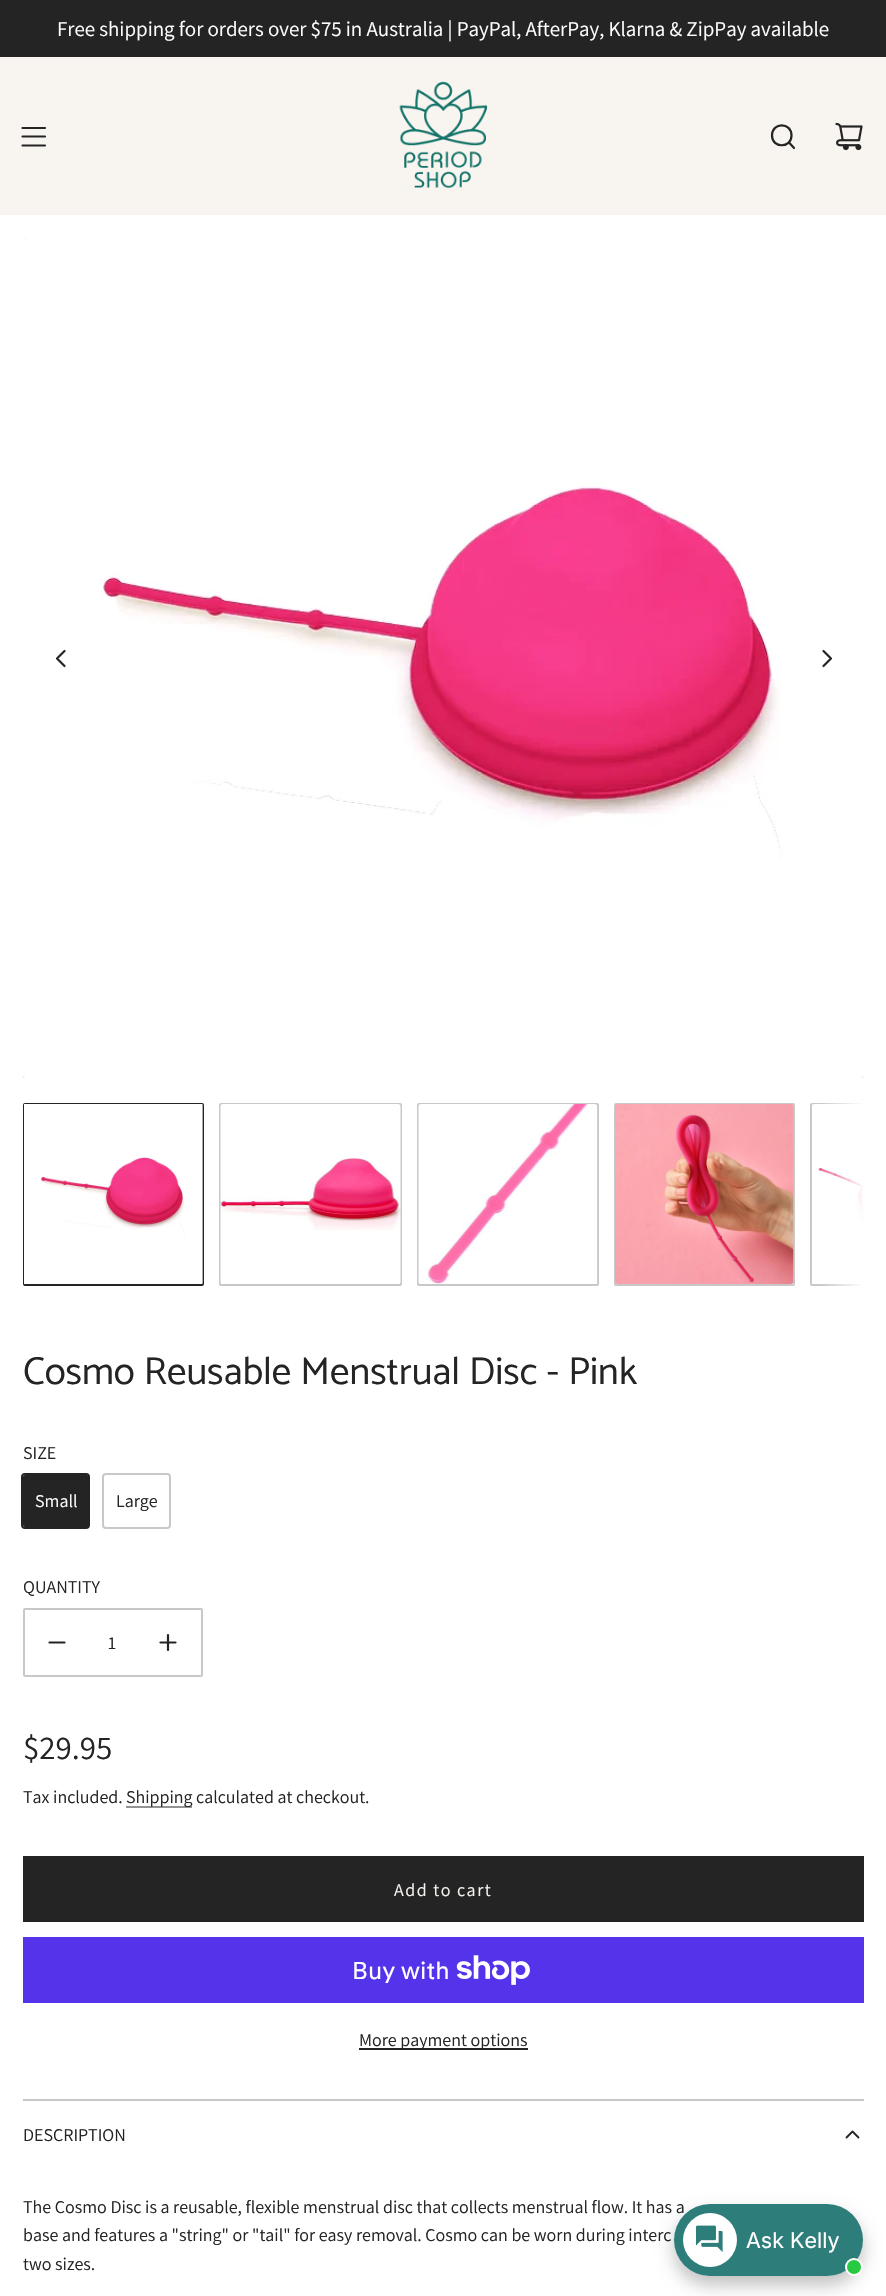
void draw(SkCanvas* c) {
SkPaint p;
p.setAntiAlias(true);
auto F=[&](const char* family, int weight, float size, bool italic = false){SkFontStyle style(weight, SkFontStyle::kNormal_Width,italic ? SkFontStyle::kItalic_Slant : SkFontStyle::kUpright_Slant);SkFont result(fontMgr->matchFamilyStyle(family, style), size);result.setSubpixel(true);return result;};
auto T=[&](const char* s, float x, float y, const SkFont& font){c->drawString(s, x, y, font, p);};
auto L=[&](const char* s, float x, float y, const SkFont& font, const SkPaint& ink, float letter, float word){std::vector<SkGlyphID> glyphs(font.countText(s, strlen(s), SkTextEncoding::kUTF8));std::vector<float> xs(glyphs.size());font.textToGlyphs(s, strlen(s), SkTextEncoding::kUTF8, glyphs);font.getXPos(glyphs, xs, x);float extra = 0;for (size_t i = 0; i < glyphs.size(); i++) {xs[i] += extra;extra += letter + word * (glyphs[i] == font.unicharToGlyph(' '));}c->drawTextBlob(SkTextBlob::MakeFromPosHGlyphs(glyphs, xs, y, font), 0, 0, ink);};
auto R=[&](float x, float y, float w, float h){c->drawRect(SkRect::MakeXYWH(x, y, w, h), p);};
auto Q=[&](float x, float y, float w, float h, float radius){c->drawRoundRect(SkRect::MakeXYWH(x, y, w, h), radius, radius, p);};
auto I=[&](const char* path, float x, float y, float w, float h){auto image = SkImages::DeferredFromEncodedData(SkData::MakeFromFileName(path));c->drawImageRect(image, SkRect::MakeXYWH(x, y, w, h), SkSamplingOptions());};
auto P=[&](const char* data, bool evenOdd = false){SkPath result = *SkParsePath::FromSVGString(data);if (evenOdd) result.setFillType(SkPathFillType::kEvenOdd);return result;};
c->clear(0xffffffff);
p.setColor(0xff242424);
R(0,0,886,57);
auto f1 = F("Assistant",400,21);
p.setColor(0xffffffff);
T("Free shipping for orders over $75 in Australia | PayPal, AfterPay, Klarna & ZipPay available",57,36,f1);
p.setColor(0xfff8f5f0);
R(0,57,886,158);
p.setStroke(true);
p.setStrokeWidth(2.2);
p.setStrokeCap(SkPaint::kRound_Cap);
p.setStrokeJoin(SkPaint::kRound_Join);
p.setColor(0xff242424);
c->drawPath(P("M22.5 128h22.5m-22.5 8.5h22.5m-22.5 9h22.5"),p);
I("1.png",399,81,89,108);
c->drawPath(P("M789.5 143l4.5 5m-22-12.5c0 13 19.5 13 19.5 0c0-13.5-19.5-13.5-19.5 0z"),p);
I("2.png",835,122,28,29);
I("3.png",22,238,842,841);
c->drawPath(P("M64.5 651l-7.5 7.5l7.5 7.5"),p);
c->drawPath(P("M823.5 651l7.5 7.5l-7.5 7.5"),p);
p.setStrokeWidth(2);
p.setStrokeCap(SkPaint::kButt_Cap);
p.setStrokeJoin(SkPaint::kMiter_Join);
c->drawRoundRect(SkRect::MakeXYWH(24,1104,179,181),1,1,p);
I("4.png",27,1105,176,178);
p.setStrokeWidth(3);
p.setColor(0xffffffff);
c->drawPath(P("M25.5 1105.5h175.5v177h-175.5z"),p);
p.setStrokeWidth(2);
p.setColor(0xffc8c8c8);
c->drawRoundRect(SkRect::MakeXYWH(220,1104,181,181),1,1,p);
I("5.png",220,1104,181,179);
c->drawRoundRect(SkRect::MakeXYWH(418,1104,180,181),1,1,p);
I("6.png",418,1104,180,180);
c->drawRoundRect(SkRect::MakeXYWH(615,1104,179,181),1,1,p);
I("7.png",615,1104,179,180);
c->save();
c->clipRect(SkRect::MakeXYWH(23,1101,841,185));
c->drawRoundRect(SkRect::MakeXYWH(811,1104,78,181),1,1,p);
c->restore();
I("8.png",812,1104,52,140);
p.setStroke(false);
{
const SkColor colors[] = {0x00ffffff,0xffffffff};
const float stops[] = {0,1};
const SkPoint ends[] = {{819,1193}, {864,1193}};
p.setShader(SkGradientShader::MakeLinear(ends, colors, stops, 2, SkTileMode::kClamp));
p.setAlpha(255);
}
R(820,1103,44,183);
auto f2 = F("Catamaran",400,39);
p.setShader(nullptr);
p.setColor(0xff242424);
T("Cosmo Reusable Menstrual Disc - Pink",23,1384,f2);
auto f3 = F("Assistant",400,18);
T("SIZE",23,1459,f3);
Q(23,1475,66,52,2);
p.setStroke(true);
c->drawRoundRect(SkRect::MakeXYWH(22,1474,67,54),3,3,p);
p.setStroke(false);
p.setColor(0xffffffff);
T("Small",35,1507,f3);
p.setStroke(true);
p.setColor(0xffc8c8c8);
c->drawRoundRect(SkRect::MakeXYWH(103,1474,67,54),3,3,p);
p.setStroke(false);
p.setColor(0xff242424);
T("Large",116,1507,f3);
T("QUANTITY",23,1593,f3);
p.setStroke(true);
p.setColor(0xffc8c8c8);
c->drawRoundRect(SkRect::MakeXYWH(24,1609,178,67),1,1,p);
p.setStrokeWidth(2.2);
p.setStrokeCap(SkPaint::kRound_Cap);
p.setStrokeJoin(SkPaint::kRound_Join);
p.setColor(0xff242424);
c->drawPath(P("M49.5 1642.5h15"),p);
p.setStroke(false);
T("1",108,1649,f3);
p.setStroke(true);
c->drawPath(P("M160.5 1642.5h7.5m0 0h7.5m-7.5 0v-7.5m0 7.5v7.5"),p);
auto f4 = F("Assistant",400,33);
p.setStroke(false);
T("$29.95",23,1759,f4);
T("Tax included.",23,1803,f3);
p.setColor(0xff929292);
R(126,1806,66,2);
p.setColor(0xff242424);
T("Shipping",126,1803,f3);
T("calculated at checkout.",196,1803,f3);
R(23,1856,841,66);
p.setColor(0xfff8f5f0);
L("Add to cart",394,1896,f3,p,1.5,0);
p.setColor(0xff5433eb);
R(23,1937,841,66);
auto f5 = F("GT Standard",400,24);
p.setColor(0xffffffff);
T("Buy with",352,1979,f5);
I("9.png",456,1955,74,30);
p.setColor(0xff242424);
R(359,2048,169,2);
T("More payment options",359,2046,f3);
p.setColor(0xffc8c8c8);
R(23,2099,841,2);
p.setColor(0xff242424);
T("DESCRIPTION",23,2141,f3);
p.setStroke(true);
p.setStrokeWidth(1.8);
c->drawPath(P("M846.5 2137.5l6-6l6 6"),p);
p.setStroke(false);
T("The Cosmo Disc is a reusable, flexible menstrual disc that collects menstrual flow. It has a",23,2213,f3);
T("base and features a \"string\" or \"tail\" for easy removal. Cosmo can be worn during interc",23,2241,f3);
T("two sizes.",23,2270,f3);
p.setColor(0x40000000);
p.setMaskFilter(SkMaskFilter::MakeBlur(kNormal_SkBlurStyle, 9));
c->drawRoundRect(SkRect::MakeXYWH(674,2213,189,72),36,36,p);
p.setMaskFilter(nullptr);
p.setColor(0xff2d7d7a);
Q(674,2204,189,72,36);
p.setColor(0xffffffff);
c->drawCircle(710,2240,27,p);
I("10.png",696,2225,27,27);
auto f6 = F("Inter",400,21.5);
T("Ask Kelly",746,2248,f6);
p.setColor(0xff27ca40);
c->drawCircle(854,2267,8,p);
p.setStroke(true);
p.setStrokeWidth(2);
p.setStrokeCap(SkPaint::kButt_Cap);
p.setStrokeJoin(SkPaint::kMiter_Join);
p.setColor(0xffffffff);
c->drawCircle(854,2267,8,p);
}
